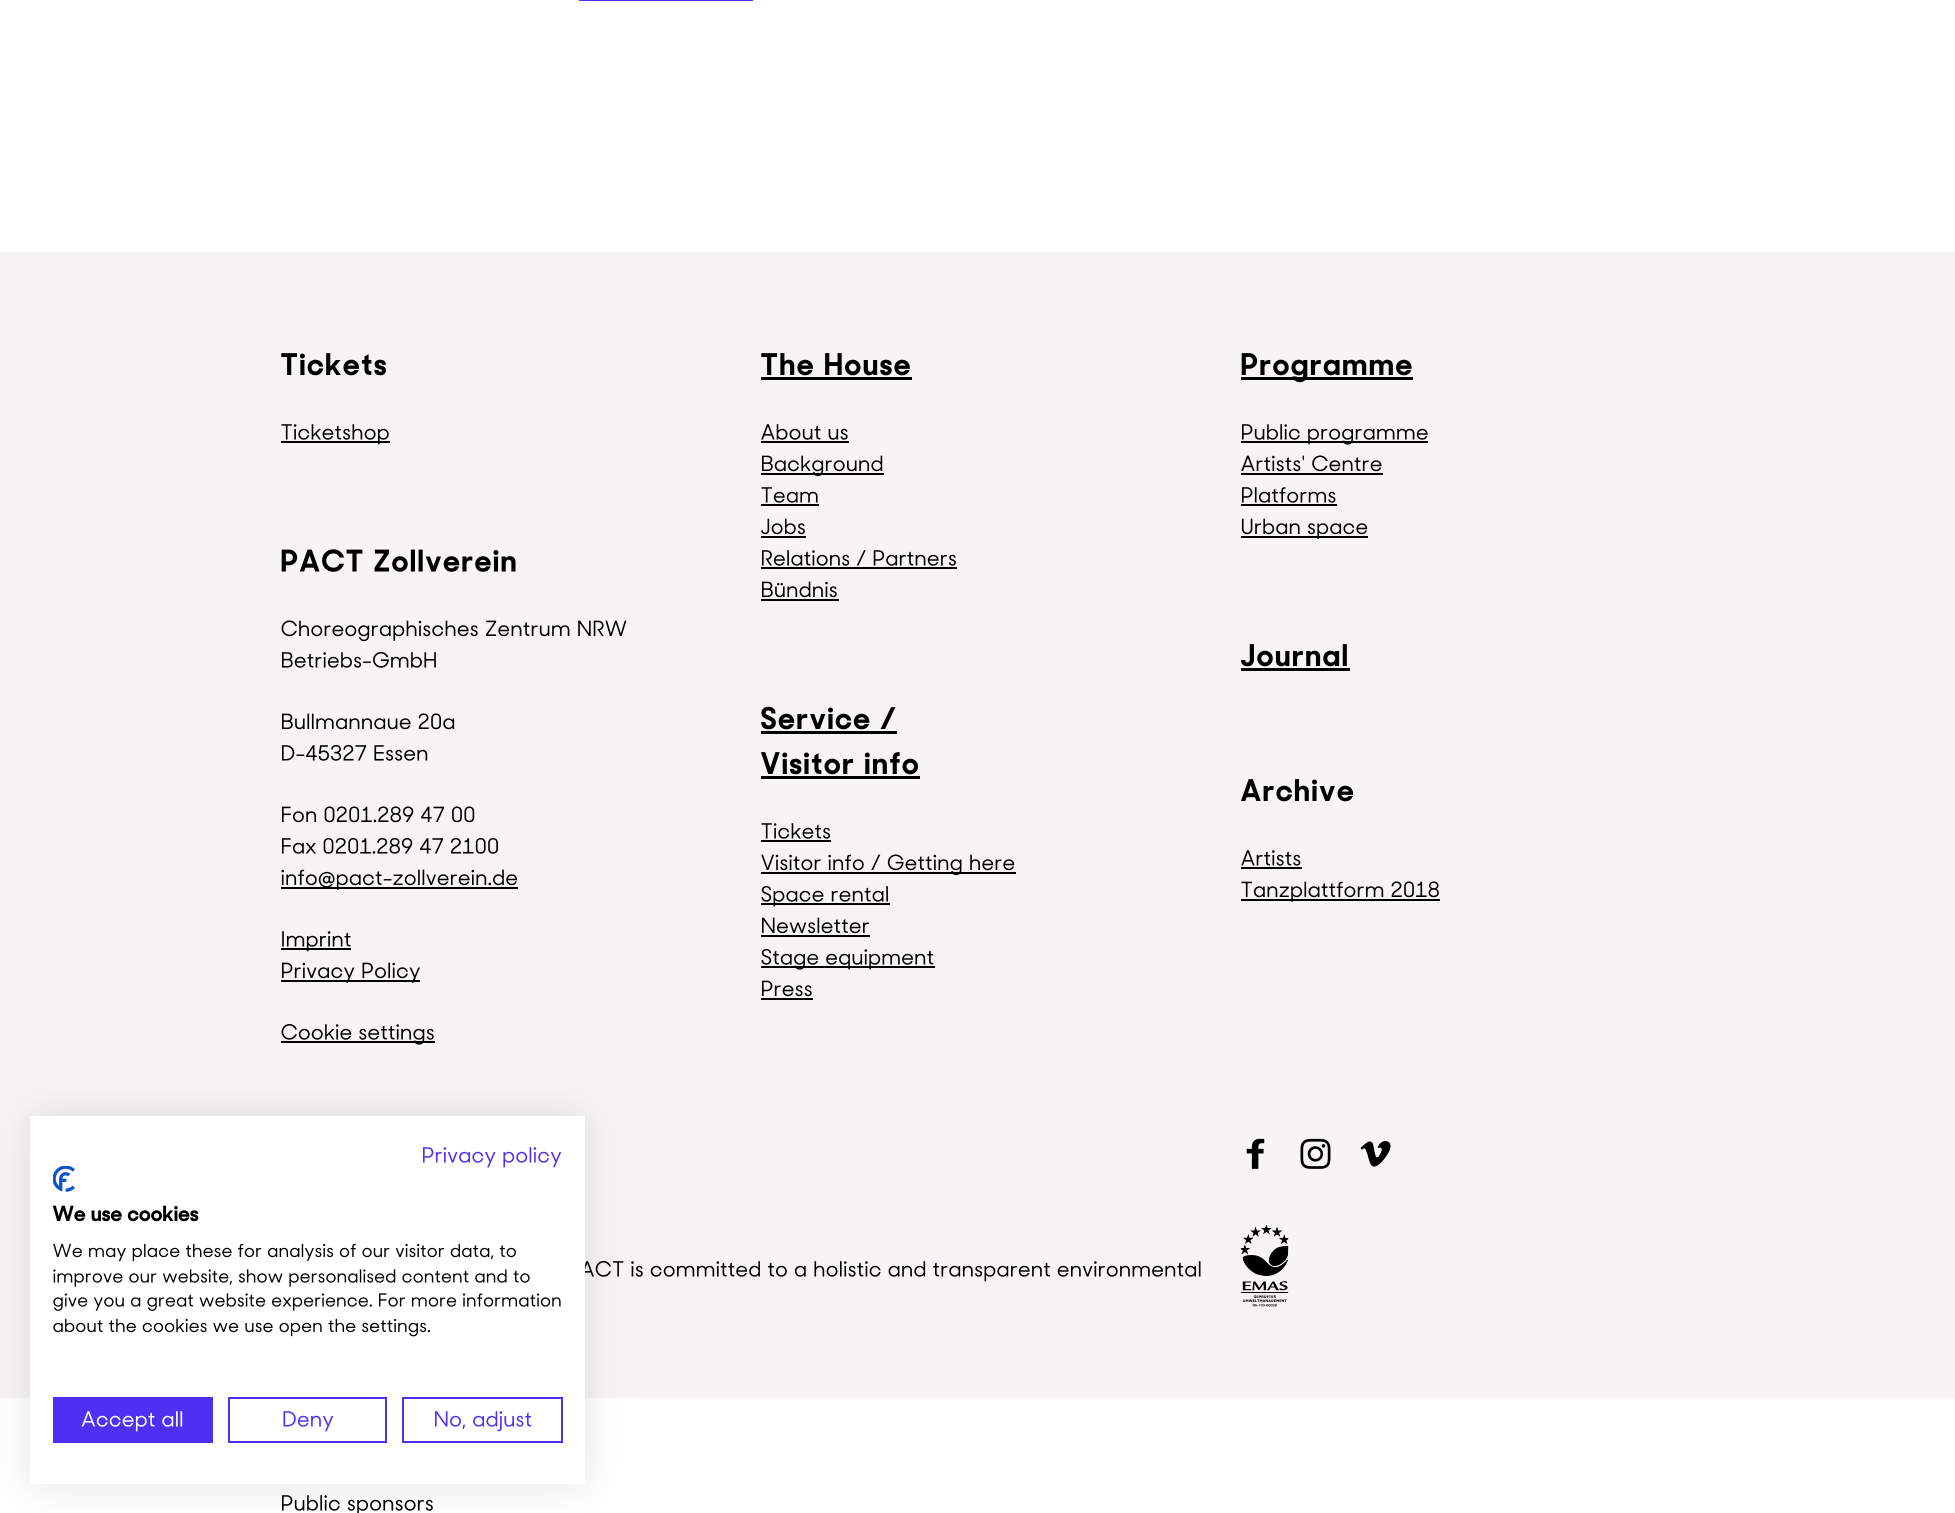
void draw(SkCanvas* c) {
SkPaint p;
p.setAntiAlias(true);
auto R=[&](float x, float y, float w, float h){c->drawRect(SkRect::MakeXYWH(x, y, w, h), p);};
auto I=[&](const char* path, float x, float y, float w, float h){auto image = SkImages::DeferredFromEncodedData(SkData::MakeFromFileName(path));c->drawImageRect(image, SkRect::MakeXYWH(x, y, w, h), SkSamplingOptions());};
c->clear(0xffffffff);
p.setColor(0xff4f2ff2);
R(579,0,174,1);
p.setColor(0xfff7f5f3);
R(0,252,1955,1146);
I("1.png",281,353,105,23);
p.setColor(0xff000000);
R(281,441,109,2);
I("2.png",281,424,108,21);
I("3.png",281,549,235,23);
I("4.png",281,620,346,22);
I("5.png",282,652,154,16);
I("6.png",282,713,173,17);
I("7.png",282,745,146,16);
I("8.png",282,806,193,17);
I("9.png",282,838,216,16);
R(281,887,237,2);
I("10.png",281,869,237,21);
R(281,948,70,2);
I("11.png",282,931,69,21);
R(281,980,139,2);
I("12.png",282,962,138,21);
R(281,1041,154,2);
I("13.png",281,1024,153,21);
I("14.png",761,353,149,23);
R(761,377,151,3);
I("15.png",761,424,87,16);
R(761,441,88,2);
R(761,473,123,2);
I("16.png",762,455,121,22);
I("17.png",761,487,57,16);
R(761,504,58,2);
I("18.png",761,518,44,17);
R(761,536,45,2);
I("19.png",762,550,194,16);
R(761,567,196,2);
I("20.png",762,581,75,17);
R(761,599,78,2);
I("21.png",761,706,135,24);
R(761,731,136,3);
I("22.png",761,752,157,23);
R(761,776,159,3);
I("23.png",761,823,70,16);
R(761,840,70,2);
R(761,872,255,2);
I("24.png",761,854,254,22);
R(761,903,129,2);
I("25.png",761,886,127,21);
I("26.png",762,917,107,17);
R(761,935,109,2);
R(761,966,174,2);
I("27.png",761,949,173,21);
I("28.png",762,980,50,17);
R(761,998,52,2);
R(1241,377,172,3);
I("29.png",1241,353,171,30);
R(1241,441,187,2);
I("30.png",1242,424,186,21);
I("31.png",1241,455,141,17);
R(1241,473,142,2);
I("32.png",1242,487,94,16);
R(1241,504,96,2);
R(1241,536,127,2);
I("33.png",1241,518,127,21);
I("34.png",1241,644,106,23);
R(1241,668,109,3);
I("35.png",1241,779,113,23);
I("36.png",1241,850,60,16);
R(1241,867,61,2);
R(1241,899,199,2);
I("37.png",1241,881,198,21);
I("38.png",1246,1138,19,31);
I("39.png",1300,1138,31,31);
I("40.png",1360,1141,31,26);
I("41.png",585,1261,616,21);
I("42.png",1241,1225,48,82);
I("43.png",282,1495,151,18);
p.setColor(0x1a000000);
p.setMaskFilter(SkMaskFilter::MakeBlur(kNormal_SkBlurStyle, 18));
c->drawRect(SkRect::MakeXYWH(30,1116,555,368),p);
p.setMaskFilter(nullptr);
p.setColor(0xffffffff);
R(30,1116,555,368);
I("44.png",423,1147,139,21);
I("45.png",53,1166,22,26);
I("46.png",52,1205,147,17);
I("47.png",53,1243,463,19);
I("48.png",53,1269,477,18);
I("49.png",53,1293,508,18);
I("50.png",53,1318,377,19);
p.setColor(0xff4f2ff2);
R(53,1397,160,46);
I("51.png",81,1411,102,21);
p.setStroke(true);
p.setStrokeWidth(2);
c->drawRect(SkRect::MakeXYWH(229,1398,157,44),p);
I("52.png",283,1411,51,21);
c->drawRect(SkRect::MakeXYWH(403,1398,159,44),p);
I("53.png",435,1411,97,21);
}
